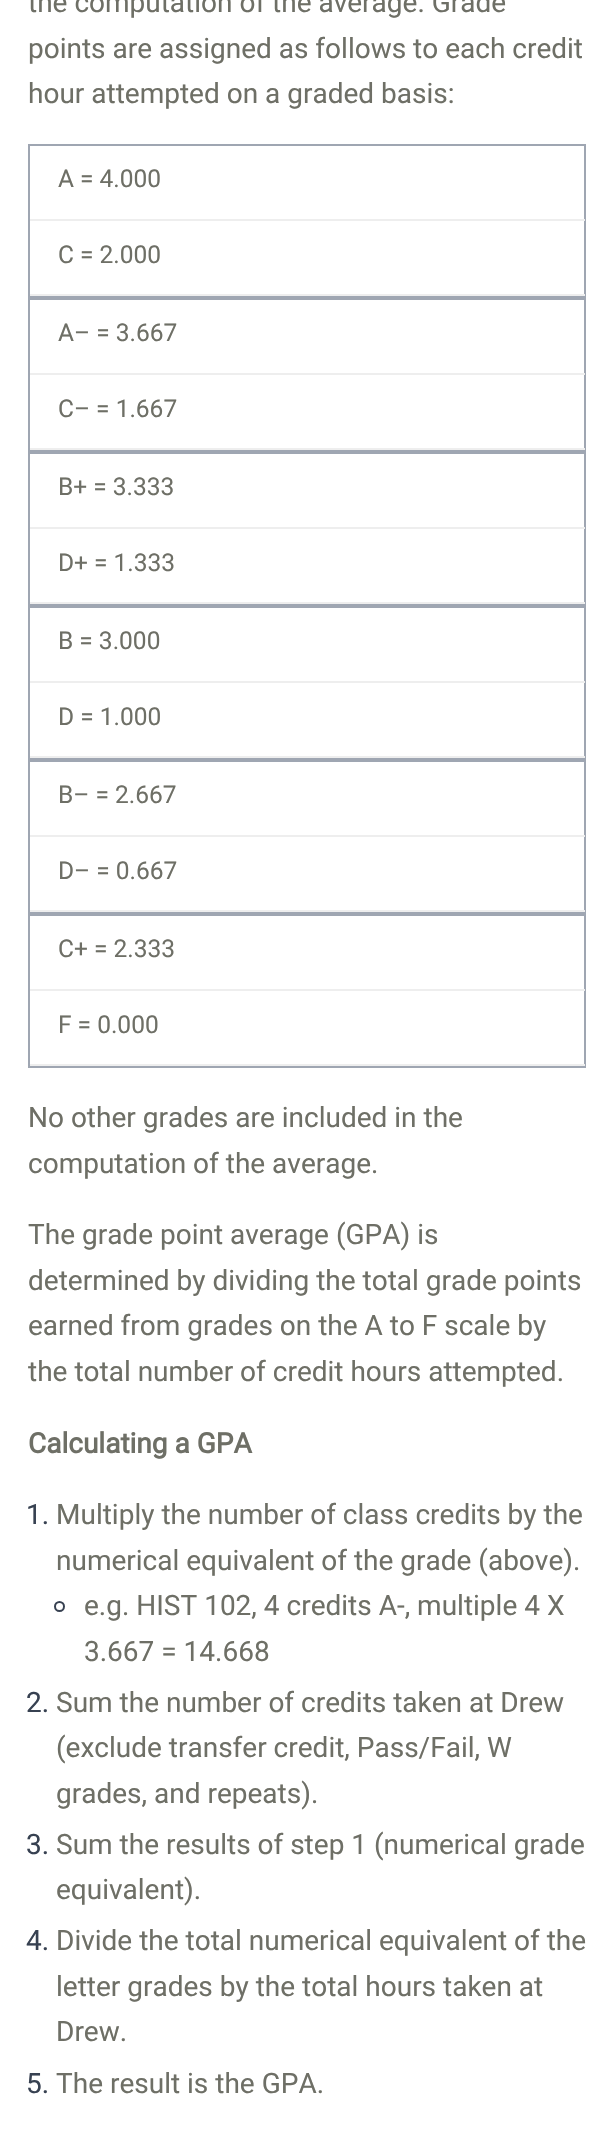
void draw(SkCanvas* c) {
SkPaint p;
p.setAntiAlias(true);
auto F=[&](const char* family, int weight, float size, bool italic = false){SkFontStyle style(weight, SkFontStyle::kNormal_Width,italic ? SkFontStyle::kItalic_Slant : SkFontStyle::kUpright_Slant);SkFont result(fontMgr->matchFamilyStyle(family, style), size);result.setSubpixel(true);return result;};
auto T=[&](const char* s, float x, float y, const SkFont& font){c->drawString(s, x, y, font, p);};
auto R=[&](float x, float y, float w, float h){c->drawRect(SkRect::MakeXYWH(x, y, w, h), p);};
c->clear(0xffffffff);
auto f1 = F("Roboto",400,28);
p.setColor(0xff6e6f66);
T("the computation of the average. Grade",28,12,f1);
T("points are assigned as follows to each credit",28,58,f1);
T("hour attempted on a graded basis:",28,103,f1);
p.setStroke(true);
p.setStrokeWidth(2);
p.setColor(0xff9fa6b2);
c->drawRect(SkRect::MakeXYWH(29,145,556,152),p);
p.setStroke(false);
p.setColor(0xffeeeeee);
R(30,219,555,2);
auto f2 = F("Roboto",400,24.5);
p.setColor(0xff6e6f66);
T("A = 4.000",58,187,f2);
p.setColor(0xffeeeeee);
R(30,294,555,2);
p.setColor(0xff6e6f66);
T("C = 2.000",58,263,f2);
p.setStroke(true);
p.setColor(0xff9fa6b2);
c->drawRect(SkRect::MakeXYWH(29,299,556,152),p);
p.setStroke(false);
p.setColor(0xffeeeeee);
R(30,373,555,2);
p.setColor(0xff6e6f66);
T("A– = 3.667",58,341,f2);
p.setColor(0xffeeeeee);
R(30,448,555,2);
p.setColor(0xff6e6f66);
T("C– = 1.667",58,417,f2);
p.setStroke(true);
p.setColor(0xff9fa6b2);
c->drawRect(SkRect::MakeXYWH(29,453,556,152),p);
p.setStroke(false);
p.setColor(0xffeeeeee);
R(30,527,555,2);
p.setColor(0xff6e6f66);
T("B+ = 3.333",58,495,f2);
p.setColor(0xffeeeeee);
R(30,602,555,2);
p.setColor(0xff6e6f66);
T("D+ = 1.333",58,571,f2);
p.setStroke(true);
p.setColor(0xff9fa6b2);
c->drawRect(SkRect::MakeXYWH(29,607,556,152),p);
p.setStroke(false);
p.setColor(0xffeeeeee);
R(30,681,555,2);
p.setColor(0xff6e6f66);
T("B = 3.000",58,649,f2);
p.setColor(0xffeeeeee);
R(30,756,555,2);
p.setColor(0xff6e6f66);
T("D = 1.000",58,725,f2);
p.setStroke(true);
p.setColor(0xff9fa6b2);
c->drawRect(SkRect::MakeXYWH(29,761,556,152),p);
p.setStroke(false);
p.setColor(0xffeeeeee);
R(30,835,555,2);
p.setColor(0xff6e6f66);
T("B– = 2.667",58,803,f2);
p.setColor(0xffeeeeee);
R(30,910,555,2);
p.setColor(0xff6e6f66);
T("D– = 0.667",58,879,f2);
p.setStroke(true);
p.setColor(0xff9fa6b2);
c->drawRect(SkRect::MakeXYWH(29,915,556,152),p);
p.setStroke(false);
p.setColor(0xffeeeeee);
R(30,989,555,2);
p.setColor(0xff6e6f66);
T("C+ = 2.333",58,957,f2);
p.setColor(0xffeeeeee);
R(30,1064,555,2);
p.setColor(0xff6e6f66);
T("F = 0.000",58,1033,f2);
T("No other grades are included in the",28,1127,f1);
T("computation of the average.",28,1173,f1);
T("The grade point average (GPA) is",28,1244,f1);
T("determined by dividing the total grade points",28,1290,f1);
T("earned from grades on the A to F scale by",28,1335,f1);
T("the total number of credit hours attempted.",28,1381,f1);
auto f3 = F("Roboto",700,28);
T("Calculating a GPA",28,1453,f3);
p.setColor(0xff374151);
T("1.",26,1524,f1);
p.setColor(0xff6e6f66);
T("Multiply the number of class credits by the",56,1524,f1);
T("numerical equivalent of the grade (above).",56,1570,f1);
p.setStroke(true);
p.setColor(0xff374151);
c->drawCircle(59.5,1606.5,4.5,p);
p.setStroke(false);
p.setColor(0xff6e6f66);
T("e.g. HIST 102, 4 credits A-, multiple 4 X",84,1615,f1);
T("3.667 = 14.668",84,1661,f1);
p.setColor(0xff374151);
T("2.",26,1712,f1);
p.setColor(0xff6e6f66);
T("Sum the number of credits taken at Drew",56,1712,f1);
T("(exclude transfer credit, Pass/Fail, W",56,1757,f1);
T("grades, and repeats).",56,1803,f1);
p.setColor(0xff374151);
T("3.",26,1854,f1);
p.setColor(0xff6e6f66);
T("Sum the results of step 1 (numerical grade",56,1854,f1);
T("equivalent).",56,1899,f1);
p.setColor(0xff374151);
T("4.",26,1950,f1);
p.setColor(0xff6e6f66);
T("Divide the total numerical equivalent of the",56,1950,f1);
T("letter grades by the total hours taken at",56,1996,f1);
T("Drew.",56,2041,f1);
p.setColor(0xff374151);
T("5.",26,2093,f1);
p.setColor(0xff6e6f66);
T("The result is the GPA.",56,2093,f1);
}
